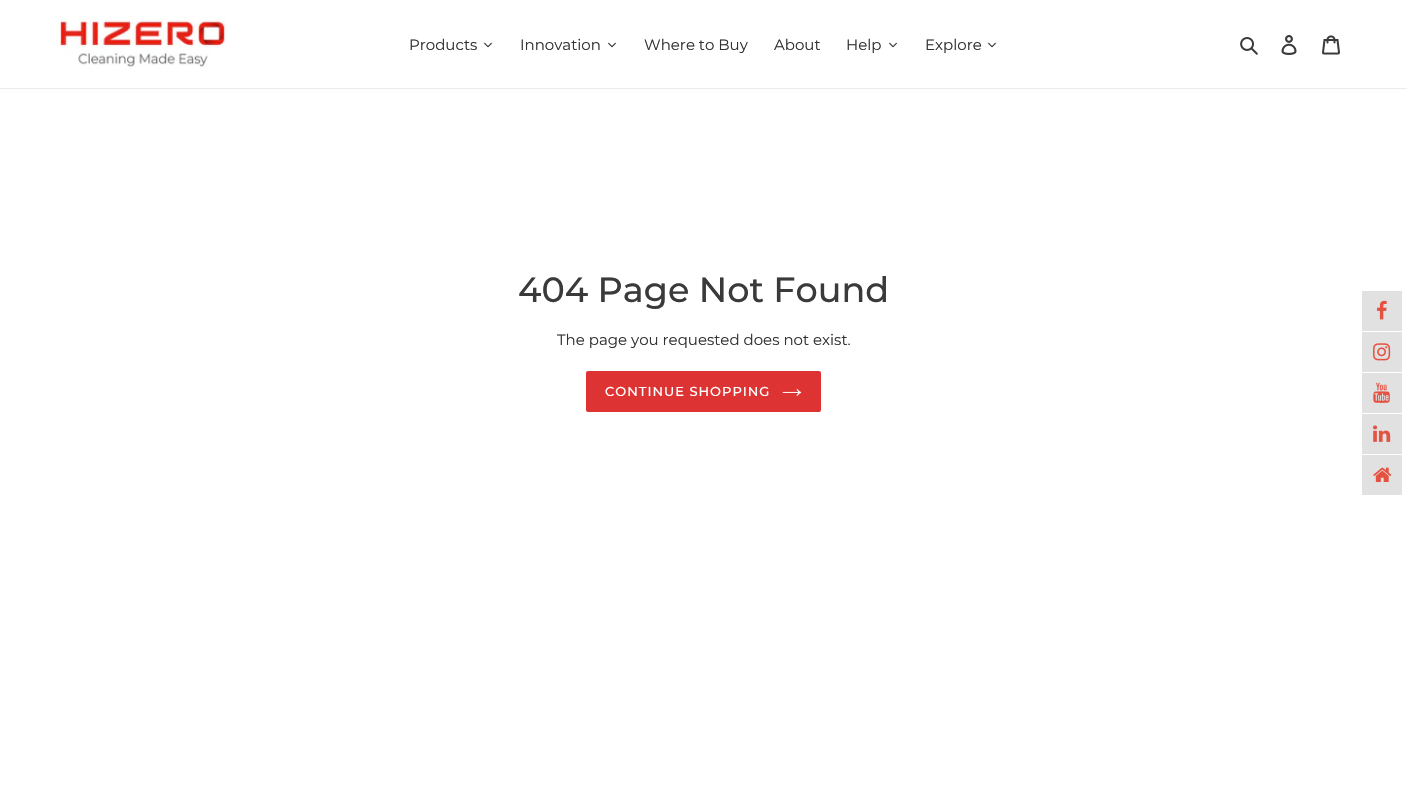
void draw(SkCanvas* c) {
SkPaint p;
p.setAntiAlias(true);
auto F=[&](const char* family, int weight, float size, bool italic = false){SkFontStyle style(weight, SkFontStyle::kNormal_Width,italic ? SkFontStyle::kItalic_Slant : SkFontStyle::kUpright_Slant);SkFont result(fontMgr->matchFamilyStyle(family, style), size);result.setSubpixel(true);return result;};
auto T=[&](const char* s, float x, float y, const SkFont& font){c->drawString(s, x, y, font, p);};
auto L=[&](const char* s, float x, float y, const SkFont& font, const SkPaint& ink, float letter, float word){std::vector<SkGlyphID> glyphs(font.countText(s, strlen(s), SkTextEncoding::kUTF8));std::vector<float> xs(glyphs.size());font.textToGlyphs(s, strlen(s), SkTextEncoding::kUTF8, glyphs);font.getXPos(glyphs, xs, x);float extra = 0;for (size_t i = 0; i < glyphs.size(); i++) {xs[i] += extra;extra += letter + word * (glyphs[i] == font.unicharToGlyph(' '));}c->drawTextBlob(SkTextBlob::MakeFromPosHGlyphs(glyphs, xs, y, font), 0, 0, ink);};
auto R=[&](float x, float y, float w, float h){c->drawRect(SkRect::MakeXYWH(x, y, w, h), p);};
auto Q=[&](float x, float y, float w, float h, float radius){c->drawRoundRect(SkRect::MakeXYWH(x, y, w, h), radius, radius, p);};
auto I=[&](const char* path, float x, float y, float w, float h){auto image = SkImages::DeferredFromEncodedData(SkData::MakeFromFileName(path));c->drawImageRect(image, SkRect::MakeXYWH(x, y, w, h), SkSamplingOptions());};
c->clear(0xffffffff);
p.setColor(0xffebebeb);
R(0,88,1407,1);
I("1.png",55,15,171,54);
auto f1 = F("Montserrat",100,15);
p.setColor(0xff333232);
T("Products",409,50,f1);
I("2.png",484,42,8,6);
T("Innovation",520,50,f1);
I("2.png",608,42,8,6);
T("Where to Buy",644,50,f1);
T("About",774,50,f1);
T("Help",846,50,f1);
I("2.png",889,42,8,6);
T("Explore",925,50,f1);
I("2.png",988,42,8,6);
I("3.png",1240,37,18,18);
I("4.png",1281,35,16,20);
I("5.png",1322,35,18,20);
auto f2 = F("Montserrat",500,35);
p.setColor(0xff3a3a3a);
T("404 Page Not Found",518,302,f2);
p.setColor(0xff333232);
T("The page you requested does not exist.",557,345,f1);
p.setColor(0xffdd3333);
Q(586,371,235,41,2);
auto f3 = F("Montserrat",500,13);
p.setColor(0xffffffff);
L("CONTINUE SHOPPING",605,396,f3,p,1,0);
I("6.png",782,388,20,8);
p.setColor(0xffe1e1e1);
R(1362,291,40,40);
I("7.png",1377,300,10,20);
R(1362,332,40,40);
I("8.png",1373,343,18,18);
R(1362,373,40,40);
I("9.png",1373,382,17,21);
R(1362,414,40,40);
I("10.png",1373,425,18,17);
R(1362,455,40,40);
I("11.png",1373,467,19,15);
}
